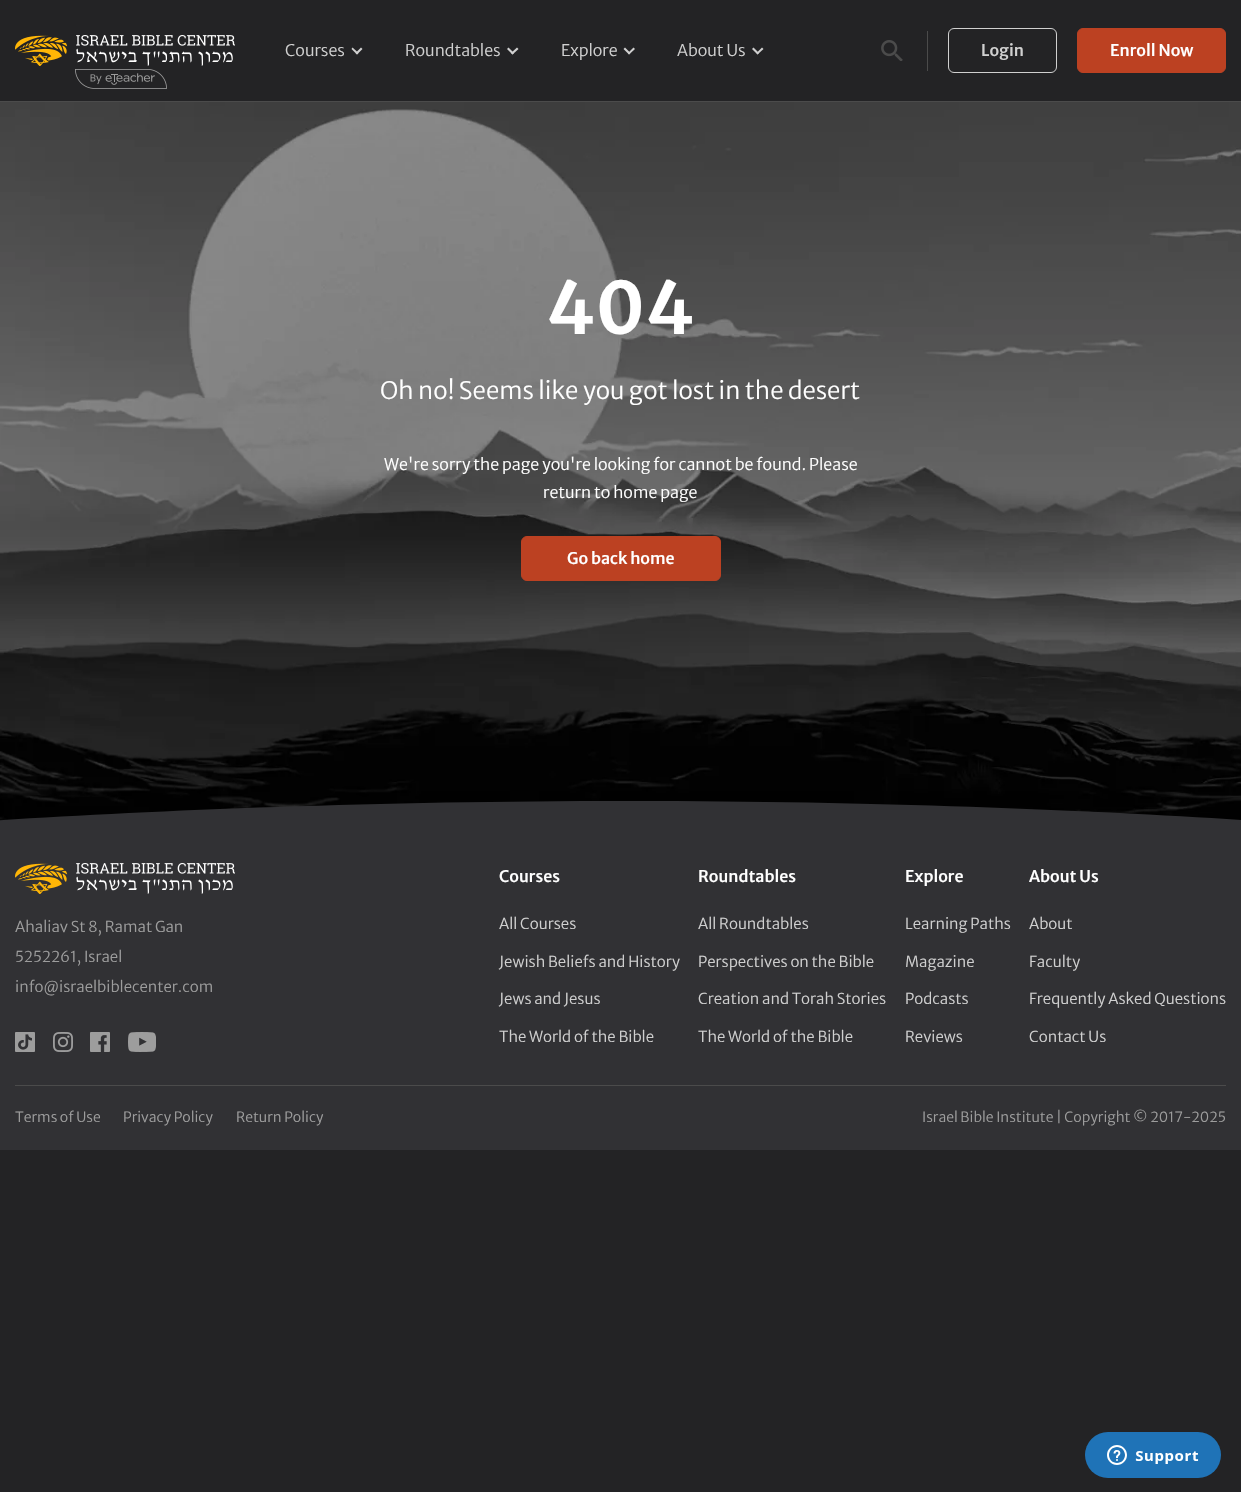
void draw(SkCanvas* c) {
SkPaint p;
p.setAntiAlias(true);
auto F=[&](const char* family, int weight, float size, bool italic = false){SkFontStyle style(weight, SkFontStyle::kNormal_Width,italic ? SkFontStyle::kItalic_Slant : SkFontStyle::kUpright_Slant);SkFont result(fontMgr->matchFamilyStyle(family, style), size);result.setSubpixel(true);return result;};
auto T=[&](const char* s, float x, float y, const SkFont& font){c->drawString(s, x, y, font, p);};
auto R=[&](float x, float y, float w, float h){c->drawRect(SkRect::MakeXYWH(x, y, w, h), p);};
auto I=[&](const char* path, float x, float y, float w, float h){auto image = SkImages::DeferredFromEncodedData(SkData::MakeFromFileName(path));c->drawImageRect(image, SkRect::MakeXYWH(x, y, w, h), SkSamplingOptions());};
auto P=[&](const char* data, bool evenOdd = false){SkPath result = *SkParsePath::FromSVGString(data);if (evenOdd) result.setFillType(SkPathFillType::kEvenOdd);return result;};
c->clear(0xff232325);
p.setColor(0xff4b4b4b);
R(0,101,1241,1);
I("1.png",15,35,220,31);
I("2.png",75,69,92,20);
auto f1 = F("Merriweather Sans",300,16);
p.setColor(0xffd0d0d0);
T("Courses",285,56,f1);
c->drawPath(P("M361 47.5l1.5 1.5l-5.5 5.5l-1.5-1.5z"),p);
c->drawPath(P("M352.5 47.5l6 5.5l-1.5 1.5l-5.5-5.5z"),p);
T("Roundtables",405,56,f1);
c->drawPath(P("M517 47.5l1.5 1.5l-6 5.5l-1.5-1.5z"),p);
c->drawPath(P("M508.5 47.5l5.5 5.5l-1.5 1.5l-5.5-5.5z"),p);
T("Explore",561,56,f1);
c->drawPath(P("M633.5 47.5l1.5 1.5l-6 5.5l-1-1.5z"),p);
c->drawPath(P("M625 47.5l5.5 5.5l-1.5 1.5l-5.5-5.5z"),p);
T("About Us",677,56,f1);
c->drawPath(P("M762 47.5l1.5 1.5l-6 5.5l-1-1.5z"),p);
c->drawPath(P("M753.5 47.5l5.5 5.5l-1.5 1.5l-5.5-5.5z"),p);
I("3.png",881,40,22,21);
p.setColor(0xff4b4b4b);
R(927,31,1,40);
p.setStroke(true);
p.setStrokeWidth(1);
p.setColor(0xffd0d0d0);
c->drawRoundRect(SkRect::MakeXYWH(948.5,28.5,108,44),5.5,5.5,p);
auto f2 = F("Merriweather Sans",500,16);
p.setStroke(false);
T("Login",981,56,f2);
p.setColor(0xffbc4122);
c->drawRoundRect(SkRect::MakeXYWH(1077.5,28.5,148,44),5.5,5.5,p);
p.setStroke(true);
c->drawRoundRect(SkRect::MakeXYWH(1077.5,28.5,148,44),5.5,5.5,p);
p.setStroke(false);
p.setColor(0xffffffff);
T("Enroll Now",1110,56,f2);
I("4.png",0,102,1241,719);
auto f3 = F("Merriweather Sans",600,72);
T("404",546,334,f3);
auto f4 = F("Merriweather Sans",300,24);
T("Oh no! Seems like you got lost in the desert",380,399,f4);
T("We're sorry the page you're looking for cannot be found. Please",384,470,f1);
T("return to home page",543,498,f1);
p.setColor(0xffbc4122);
c->drawRoundRect(SkRect::MakeXYWH(521.5,536.5,199,44),5.5,5.5,p);
p.setStroke(true);
c->drawRoundRect(SkRect::MakeXYWH(521.5,536.5,199,44),5.5,5.5,p);
p.setStroke(false);
p.setColor(0xffffffff);
T("Go back home",567,564,f2);
p.setColor(0xff313134);
c->drawPath(P("M630 801c518 0 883 41 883 41v21h-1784v-21c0 0 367-41 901-41z"),p);
R(0,863,1241,287);
p.setColor(0xff4b4b4b);
R(15,1085,1211,1);
I("5.png",15,863,220,31);
auto f5 = F("Merriweather Sans",300,15);
p.setColor(0xff9d9d9d);
T("Ahaliav St 8, Ramat Gan",15,932,f5);
T("5252261, Israel",15,962,f5);
T("info@israelbiblecenter.com",15,992,f5);
I("6.png",15,1032,20,20);
I("7.png",53,1032,20,20);
I("8.png",90,1032,20,20);
I("9.png",128,1032,28,20);
p.setColor(0xffffffff);
T("Courses",499,882,f2);
p.setColor(0xffd0d0d0);
T("All Courses",499,929,f5);
T("Jewish Beliefs and History",499,967,f5);
T("Jews and Jesus",499,1004,f5);
T("The World of the Bible",499,1042,f5);
p.setColor(0xffffffff);
T("Roundtables",698,882,f2);
p.setColor(0xffd0d0d0);
T("All Roundtables",698,929,f5);
T("Perspectives on the Bible",698,967,f5);
T("Creation and Torah Stories",698,1004,f5);
T("The World of the Bible",698,1042,f5);
p.setColor(0xffffffff);
T("Explore",905,882,f2);
p.setColor(0xffd0d0d0);
T("Learning Paths",905,929,f5);
T("Magazine",905,967,f5);
T("Podcasts",905,1004,f5);
T("Reviews",905,1042,f5);
p.setColor(0xffffffff);
T("About Us",1029,882,f2);
p.setColor(0xffd0d0d0);
T("About",1029,929,f5);
T("Faculty",1029,967,f5);
T("Frequently Asked Questions",1029,1004,f5);
T("Contact Us",1029,1042,f5);
auto f6 = F("Merriweather Sans",300,14);
p.setColor(0xff9d9d9d);
T("Terms of Use",15,1122,f6);
T("Privacy Policy",123,1122,f6);
T("Return Policy",236,1122,f6);
T("Israel Bible Institute | Copyright © 2017-2025",922,1122,f6);
I("10.png",1085,1432,136,46);
}
